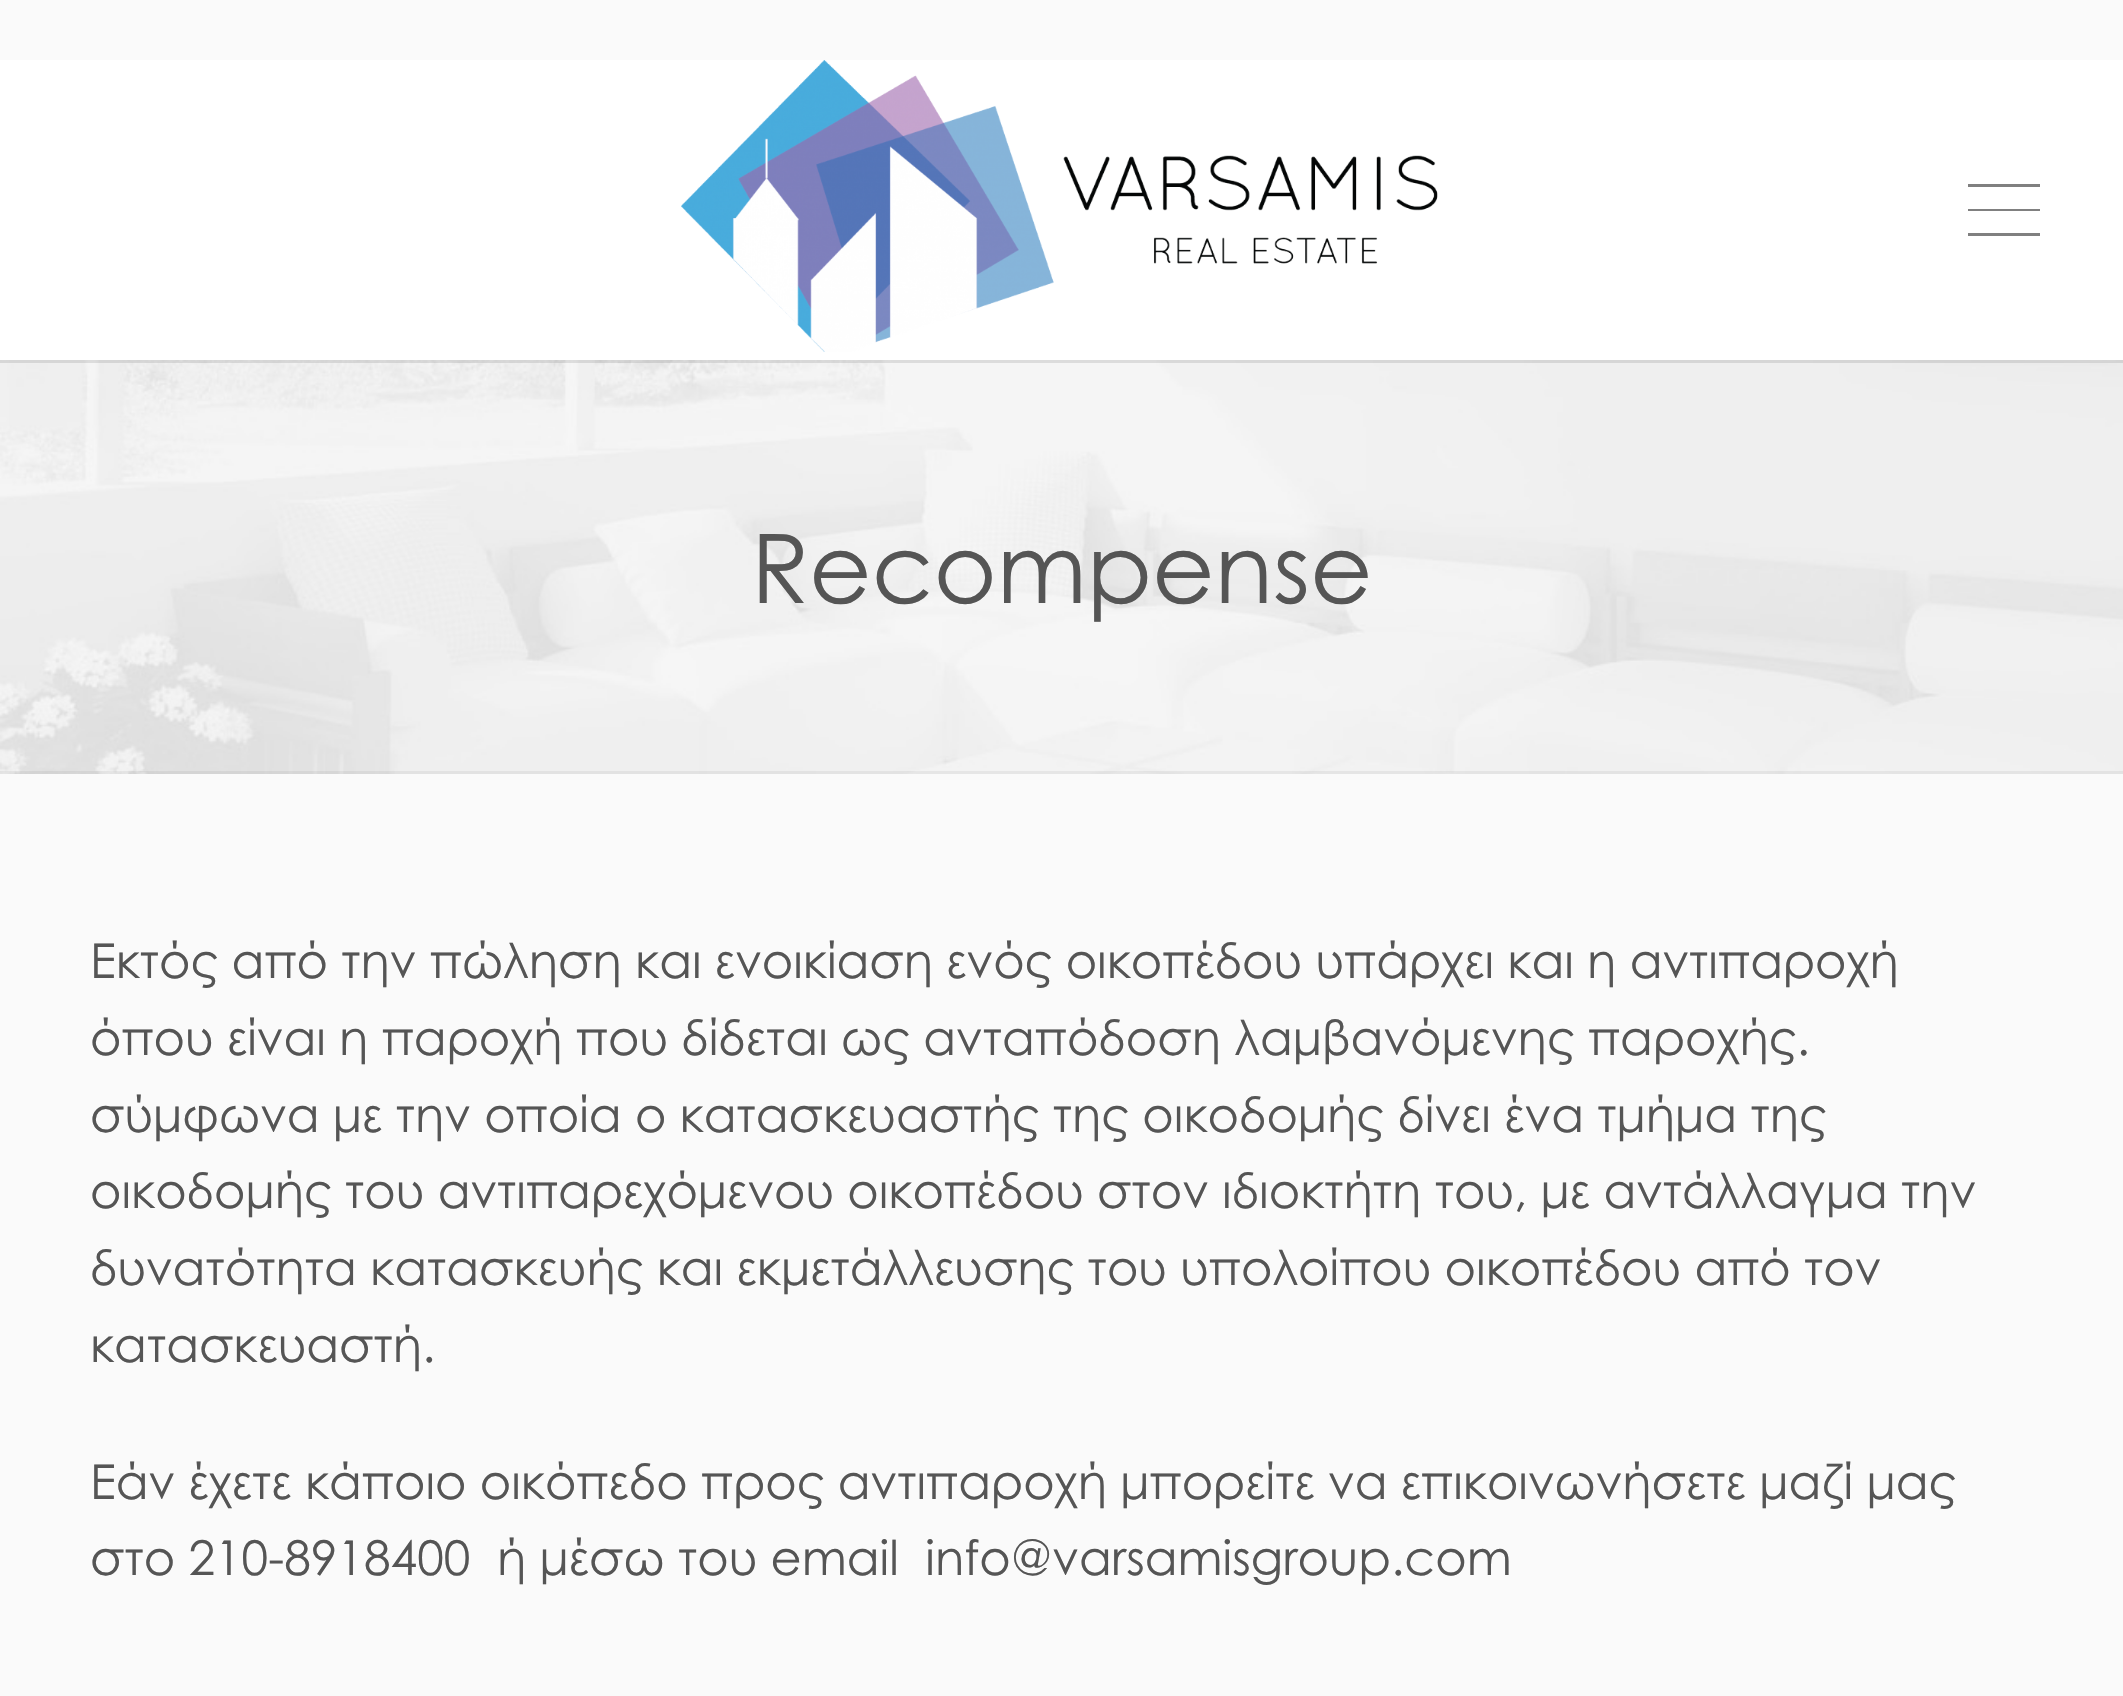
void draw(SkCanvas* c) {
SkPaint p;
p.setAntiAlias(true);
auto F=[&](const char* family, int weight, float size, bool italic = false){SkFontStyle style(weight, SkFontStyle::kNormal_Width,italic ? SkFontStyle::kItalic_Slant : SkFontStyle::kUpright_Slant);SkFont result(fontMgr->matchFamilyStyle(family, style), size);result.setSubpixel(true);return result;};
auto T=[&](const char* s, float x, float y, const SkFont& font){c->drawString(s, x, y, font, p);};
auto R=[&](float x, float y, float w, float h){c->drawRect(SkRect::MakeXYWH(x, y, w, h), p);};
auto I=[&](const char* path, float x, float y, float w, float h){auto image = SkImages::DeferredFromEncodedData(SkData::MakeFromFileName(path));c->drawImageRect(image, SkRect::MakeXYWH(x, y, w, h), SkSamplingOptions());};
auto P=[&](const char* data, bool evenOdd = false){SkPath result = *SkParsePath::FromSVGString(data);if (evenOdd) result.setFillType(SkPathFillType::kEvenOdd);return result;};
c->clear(0xfffafafa);
p.setColor(0xffffffff);
R(0,60,2123,300);
I("1.png",681,60,757,292);
p.setColor(0xff808080);
c->drawPath(P("M1968 184h72v3h-72zm0 25h72v2h-72zm0 24h72v3h-72z"),p);
I("2.png",0,360,2123,414);
p.setColor(0x1a000000);
R(0,360,2123,3);
auto f1 = F("Century Gothic",400,96);
p.setColor(0xff555555);
T("Recompense",751,603,f1);
p.setColor(0x0d000000);
R(0,771,2123,3);
auto f2 = F("Century Gothic",400,48);
p.setColor(0xff555555);
T("Εκτός από την πώληση και ενοικίαση ενός οικοπέδου υπάρχει και η αντιπαροχή",90,978,f2);
T("όπου είναι η παροχή που δίδεται ως ανταπόδοση λαμβανόμενης παροχής.",90,1055,f2);
T("σύμφωνα με την οποία ο κατασκευαστής της οικοδομής δίνει ένα τμήμα της",90,1132,f2);
T("οικοδομής του αντιπαρεχόμενου οικοπέδου στον ιδιοκτήτη του, με αντάλλαγμα την",90,1208,f2);
T("δυνατότητα κατασκευής και εκμετάλλευσης του υπολοίπου οικοπέδου από τον",90,1285,f2);
T("κατασκευαστή.",90,1362,f2);
T("Εάν έχετε κάποιο οικόπεδο προς αντιπαροχή μπορείτε να επικοινωνήσετε μαζί μας",90,1499,f2);
T("στο 210-8918400  ή μέσω του email  info@varsamisgroup.com",90,1575,f2);
}
